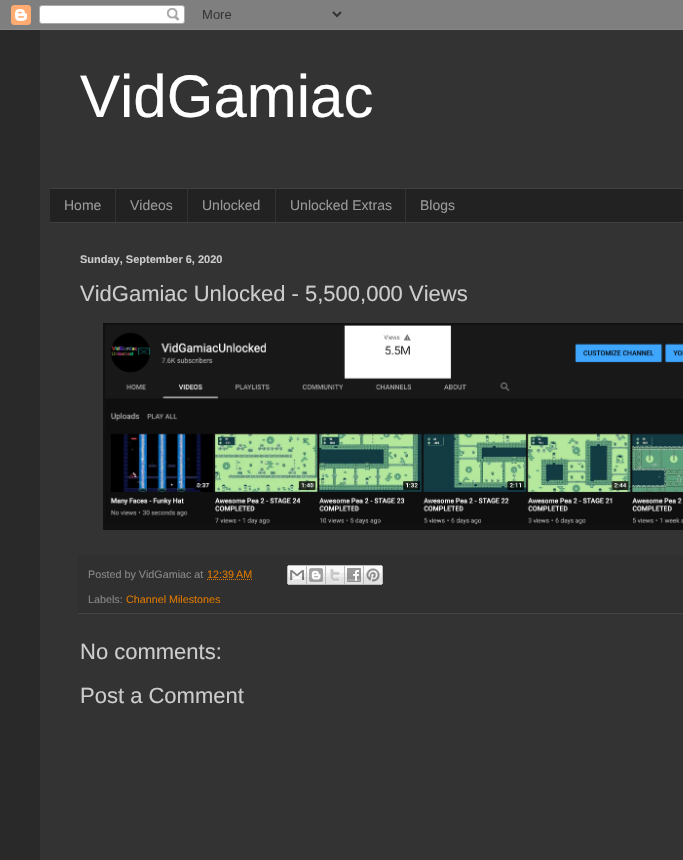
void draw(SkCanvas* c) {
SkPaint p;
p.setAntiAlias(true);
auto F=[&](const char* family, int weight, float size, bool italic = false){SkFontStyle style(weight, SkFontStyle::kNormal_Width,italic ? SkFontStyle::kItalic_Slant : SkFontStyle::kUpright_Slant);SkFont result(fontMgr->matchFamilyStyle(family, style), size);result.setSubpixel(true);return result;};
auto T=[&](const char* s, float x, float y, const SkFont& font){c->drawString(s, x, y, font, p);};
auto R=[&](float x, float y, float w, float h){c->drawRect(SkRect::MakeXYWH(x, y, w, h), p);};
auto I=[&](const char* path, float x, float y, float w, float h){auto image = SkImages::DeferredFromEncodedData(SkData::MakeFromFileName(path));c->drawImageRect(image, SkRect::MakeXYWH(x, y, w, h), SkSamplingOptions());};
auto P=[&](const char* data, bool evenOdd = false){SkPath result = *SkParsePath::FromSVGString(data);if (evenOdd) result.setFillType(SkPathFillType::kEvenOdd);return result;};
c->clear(0xff292929);
I("1.png",0,0,683,30);
p.setColor(0xff333333);
R(40,30,643,830);
auto f1 = F("Liberation Sans",400,60);
p.setColor(0xffffffff);
T("VidGamiac",80,117,f1);
p.setColor(0xff222222);
R(50,189,633,33);
p.setColor(0xff404040);
R(50,188,633,1);
R(50,222,633,1);
auto f2 = F("Liberation Sans",400,14);
p.setColor(0xff999999);
T("Home",64,210,f2);
p.setColor(0xff333333);
R(115,189,1,33);
p.setColor(0xff999999);
T("Videos",130,210,f2);
p.setColor(0xff333333);
R(187,189,1,33);
p.setColor(0xff999999);
T("Unlocked",202,210,f2);
p.setColor(0xff333333);
R(275,189,1,33);
p.setColor(0xff999999);
T("Unlocked Extras",290,210,f2);
p.setColor(0xff333333);
R(405,189,1,33);
p.setColor(0xff999999);
T("Blogs",420,210,f2);
auto f3 = F("Liberation Sans",700,11);
p.setColor(0xffcccccc);
T("Sunday, September 6, 2020",80,263,f3);
auto f4 = F("Liberation Sans",400,22);
T("VidGamiac Unlocked - 5,500,000 Views",80,301,f4);
p.setColor(0xff111111);
R(103,323,580,207);
I("2.png",105,325,578,200);
p.setColor(0xff303030);
R(78,555,605,58);
p.setColor(0xff444444);
R(78,613,605,1);
auto f5 = F("Liberation Sans",400,10.75);
p.setColor(0xff888888);
T("Posted by VidGamiac at",88,578,f5);
p.setColor(0xffdd7700);
T("12:39 AM",207,578,f5);
p.setStroke(true);
p.setStrokeWidth(1);
p.setPathEffect(SkDashPathEffect::Make({{1,1}}, 0));
c->drawPath(P("M207 579.5h45"),p);
p.setPathEffect(nullptr);
I("3.png",287,565,20,20);
I("4.png",307,565,19,20);
I("5.png",326,565,19,20);
I("6.png",345,565,19,20);
I("7.png",364,565,19,20);
p.setStroke(false);
p.setColor(0xff888888);
T("Labels:",88,603,f5);
p.setColor(0xffdd7700);
T("Channel Milestones",126,603,f5);
p.setColor(0xffcccccc);
T("No comments:",80,659,f4);
T("Post a Comment",80,703,f4);
}
